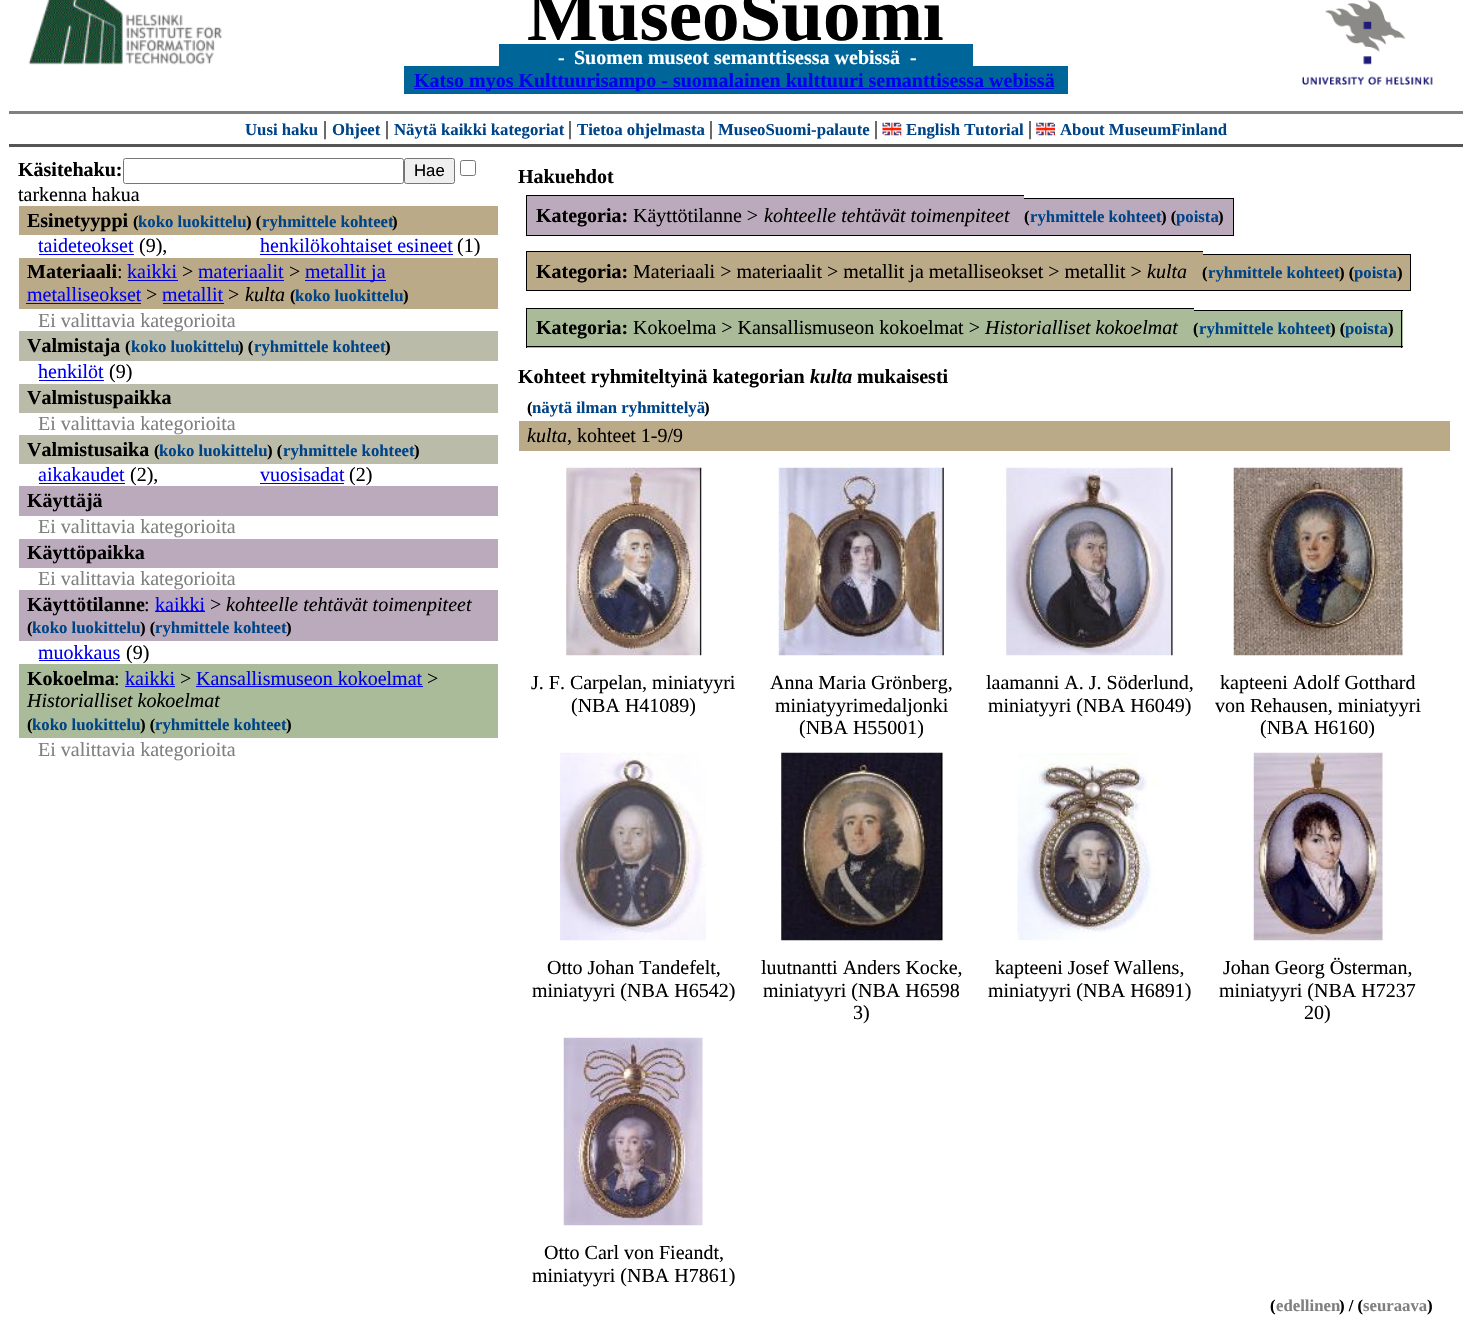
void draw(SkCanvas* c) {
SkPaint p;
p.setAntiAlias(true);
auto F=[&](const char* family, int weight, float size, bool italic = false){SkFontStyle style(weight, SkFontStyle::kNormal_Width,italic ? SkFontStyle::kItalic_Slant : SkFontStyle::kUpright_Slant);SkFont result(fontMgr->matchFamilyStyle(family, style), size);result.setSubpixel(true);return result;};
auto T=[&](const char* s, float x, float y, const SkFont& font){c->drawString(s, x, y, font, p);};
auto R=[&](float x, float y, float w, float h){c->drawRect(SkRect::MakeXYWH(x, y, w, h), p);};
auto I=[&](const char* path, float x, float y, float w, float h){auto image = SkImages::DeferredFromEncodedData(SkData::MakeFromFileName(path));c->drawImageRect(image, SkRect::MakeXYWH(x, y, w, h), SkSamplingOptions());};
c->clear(0xffffffff);
I("1.png",28,0,195,65);
auto f1 = F("Liberation Serif",700,75);
p.setColor(0xff000000);
T("MuseoSuomi",527,40,f1);
I("2.png",1302,0,131,85);
p.setColor(0xff006699);
R(499,44,474,22);
auto f2 = F("Liberation Serif",700,20);
p.setColor(0xffffffff);
T("-",558,64,f2);
T("Suomen museot semanttisessa webissä",574,64,f2);
T("-",910,64,f2);
p.setColor(0xff006699);
R(404,66,664,28);
p.setColor(0xff0000ee);
R(414,88,640,1);
T("Katso myos Kulttuurisampo - suomalainen kulttuuri semanttisessa webissä",414,87,f2);
p.setColor(0xff808080);
R(9,111,1454,3);
p.setColor(0xff555555);
R(9,144,1454,3);
auto f3 = F("Liberation Serif",700,16.75);
p.setColor(0xff004488);
T("Uusi haku",245,135,f3);
auto f4 = F("Liberation Serif",400,20);
p.setColor(0xff000000);
T("|",323,135,f4);
p.setColor(0xff004488);
T("Ohjeet",332,135,f3);
p.setColor(0xff000000);
T("|",385,135,f4);
p.setColor(0xff004488);
T("Näytä kaikki kategoriat",394,135,f3);
p.setColor(0xff000000);
T("|",568,135,f4);
p.setColor(0xff004488);
T("Tietoa ohjelmasta",577,135,f3);
p.setColor(0xff000000);
T("|",709,135,f4);
p.setColor(0xff004488);
T("MuseoSuomi-palaute",718,135,f3);
p.setColor(0xff000000);
T("|",874,135,f4);
I("3.png",882,122,20,14);
p.setColor(0xff004488);
T("English Tutorial",906,135,f3);
p.setColor(0xff000000);
T("|",1028,135,f4);
I("4.png",1036,122,19,14);
p.setColor(0xff004488);
T("About MuseumFinland",1060,135,f3);
p.setColor(0xff000000);
T("Käsitehaku:",18,176,f2);
p.setStroke(true);
p.setStrokeWidth(1);
p.setColor(0xff767676);
c->drawRoundRect(SkRect::MakeXYWH(123.5,158.5,280,25),2,2,p);
p.setStroke(false);
p.setColor(0xffefefef);
c->drawRoundRect(SkRect::MakeXYWH(404.5,158.5,50,25),2,2,p);
p.setStroke(true);
p.setColor(0xff767676);
c->drawRoundRect(SkRect::MakeXYWH(404.5,158.5,50,25),2,2,p);
auto f5 = F("Liberation Sans",400,16.75);
p.setStroke(false);
p.setColor(0xff000000);
T("Hae",414,176,f5);
p.setStroke(true);
p.setColor(0xff767676);
c->drawRoundRect(SkRect::MakeXYWH(460.5,160.5,15,15),2,2,p);
p.setStroke(false);
p.setColor(0xff000000);
T("tarkenna hakua",18,201,f4);
p.setColor(0xffbbaa88);
R(19,206,479,29);
p.setColor(0xff000000);
T("Esinetyyppi",27,227,f2);
T("(",133,227,f3);
p.setColor(0xff004488);
T("koko luokittelu",138,227,f3);
p.setColor(0xff000000);
T(") (",246,227,f3);
p.setColor(0xff004488);
T("ryhmittele kohteet",262,227,f3);
p.setColor(0xff000000);
T(")",392,227,f3);
p.setColor(0xff0000ee);
T("taideteokset",38,252,f4);
R(39,254,95,1);
p.setColor(0xff000000);
T("(9),",139,252,f4);
p.setColor(0xff0000ee);
T("henkilökohtaiset esineet",260,252,f4);
R(260,254,193,1);
p.setColor(0xff000000);
T("(1)",457,252,f4);
p.setColor(0xffbbaa88);
R(19,258,479,51);
p.setColor(0xff000000);
T("Materiaali",27,278,f2);
T(":",117,278,f4);
p.setColor(0xff0000ee);
T("kaikki",127,278,f4);
R(128,280,50,1);
p.setColor(0xff000000);
T(">",182,278,f4);
p.setColor(0xff0000ee);
T("materiaalit",198,278,f4);
R(199,280,85,1);
p.setColor(0xff000000);
T(">",289,278,f4);
p.setColor(0xff0000ee);
R(305,280,81,1);
T("metallit ja",305,278,f4);
T("metalliseokset",27,301,f4);
R(26,303,115,1);
p.setColor(0xff000000);
T(">",146,301,f4);
p.setColor(0xff0000ee);
T("metallit",162,301,f4);
R(163,303,61,1);
p.setColor(0xff000000);
T(">",228,301,f4);
auto f6 = F("Liberation Serif",400,20,true);
T("kulta",245,301,f6);
T("(",290,301,f3);
p.setColor(0xff004488);
T("koko luokittelu",295,301,f3);
p.setColor(0xff000000);
T(")",403,301,f3);
p.setColor(0xffbbbbaa);
R(19,331,479,30);
p.setColor(0xff808080);
T("Ei valittavia kategorioita",38,327,f4);
p.setColor(0xff000000);
T("Valmistaja",27,352,f2);
T("(",125,352,f3);
p.setColor(0xff004488);
T("koko luokittelu",131,352,f3);
p.setColor(0xff000000);
T(") (",238,352,f3);
p.setColor(0xff004488);
T("ryhmittele kohteet",254,352,f3);
p.setColor(0xff000000);
T(")",385,352,f3);
p.setColor(0xff0000ee);
T("henkilöt",38,378,f4);
R(39,380,65,1);
p.setColor(0xff000000);
T("(9)",109,378,f4);
p.setColor(0xffbbbbaa);
R(19,384,479,29);
p.setColor(0xff000000);
T("Valmistuspaikka",27,404,f2);
p.setColor(0xff808080);
T("Ei valittavia kategorioita",38,430,f4);
p.setColor(0xffbbbbaa);
R(19,435,479,29);
p.setColor(0xff000000);
T("Valmistusaika",27,456,f2);
T("(",154,456,f3);
p.setColor(0xff004488);
T("koko luokittelu",159,456,f3);
p.setColor(0xff000000);
T(") (",267,456,f3);
p.setColor(0xff004488);
T("ryhmittele kohteet",283,456,f3);
p.setColor(0xff000000);
T(")",414,456,f3);
p.setColor(0xff0000ee);
T("aikakaudet",38,481,f4);
R(39,483,86,1);
p.setColor(0xff000000);
T("(2),",130,481,f4);
p.setColor(0xff0000ee);
T("vuosisadat",260,481,f4);
R(260,483,84,1);
p.setColor(0xff000000);
T("(2)",349,481,f4);
p.setColor(0xffbbaabb);
R(19,486,479,30);
p.setColor(0xff000000);
T("Käyttäjä",27,507,f2);
p.setColor(0xff808080);
T("Ei valittavia kategorioita",38,533,f4);
p.setColor(0xffbbaabb);
R(19,539,479,29);
p.setColor(0xff000000);
T("Käyttöpaikka",27,559,f2);
p.setColor(0xff808080);
T("Ei valittavia kategorioita",38,585,f4);
p.setColor(0xffbbaabb);
R(19,590,479,51);
p.setColor(0xff000000);
T("Käyttötilanne",27,611,f2);
T(":",144,611,f4);
p.setColor(0xff0000ee);
R(155,611,50,1);
T("kaikki",155,611,f4);
p.setColor(0xff000000);
T(">",210,611,f4);
T("kohteelle tehtävät toimenpiteet",226,611,f6);
T("(",27,633,f3);
p.setColor(0xff004488);
T("koko luokittelu",32,633,f3);
p.setColor(0xff000000);
T(") (",140,633,f3);
p.setColor(0xff004488);
T("ryhmittele kohteet",155,633,f3);
p.setColor(0xff000000);
T(")",286,633,f3);
p.setColor(0xff0000ee);
T("muokkaus",38,659,f4);
R(39,660,81,1);
p.setColor(0xff000000);
T("(9)",126,659,f4);
p.setColor(0xffaabb99);
R(19,664,479,74);
p.setColor(0xff000000);
T("Kokoelma",27,685,f2);
T(":",114,685,f4);
p.setColor(0xff0000ee);
T("kaikki",125,685,f4);
R(125,686,50,1);
p.setColor(0xff000000);
T(">",180,685,f4);
p.setColor(0xff0000ee);
T("Kansallismuseon kokoelmat",196,685,f4);
R(196,686,227,1);
p.setColor(0xff000000);
T(">",427,685,f4);
T("Historialliset kokoelmat",27,707,f6);
T("(",27,730,f3);
p.setColor(0xff004488);
T("koko luokittelu",32,730,f3);
p.setColor(0xff000000);
T(") (",140,730,f3);
p.setColor(0xff004488);
T("ryhmittele kohteet",155,730,f3);
p.setColor(0xff000000);
T(")",286,730,f3);
p.setColor(0xff808080);
T("Ei valittavia kategorioita",38,756,f4);
p.setColor(0xff000000);
T("Hakuehdot",518,183,f2);
p.setColor(0xffbbaabb);
R(527,196,497,39);
p.setColor(0xff000000);
T("Kategoria:",536,222,f2);
R(526,195,498,1);
R(526,235,498,1);
R(526,195,1,41);
T("Käyttötilanne >",633,222,f4);
T("kohteelle tehtävät toimenpiteet",764,222,f6);
p.setColor(0xffbbaabb);
R(1024,198,6,38);
p.setColor(0xff000000);
T("(",1024,222,f3);
R(1024,198,146,1);
R(1024,235,146,1);
p.setColor(0xffbbaabb);
R(1030,199,140,36);
p.setColor(0xff004488);
T("ryhmittele kohteet",1030,222,f3);
p.setColor(0xffbbaabb);
R(1170,198,6,38);
p.setColor(0xff000000);
T(") (",1161,222,f3);
R(1170,198,64,1);
R(1170,235,49,1);
p.setColor(0xffbbaabb);
R(1176,199,57,36);
p.setColor(0xff004488);
T("poista",1176,222,f3);
p.setColor(0xff000000);
R(1233,198,1,38);
R(1219,235,15,1);
T(")",1218,222,f3);
p.setColor(0xffbbaa88);
R(527,252,676,38);
p.setColor(0xff000000);
T("Kategoria:",536,278,f2);
R(526,251,677,1);
R(526,290,677,1);
R(526,251,1,40);
T("Materiaali > materiaalit > metallit ja metalliseokset > metallit >",633,278,f4);
T("kulta",1147,278,f6);
p.setColor(0xffbbaa88);
R(1203,254,5,37);
p.setColor(0xff000000);
T("(",1202,278,f3);
R(1203,254,146,1);
R(1203,290,146,1);
p.setColor(0xffbbaa88);
R(1208,255,141,35);
p.setColor(0xff004488);
T("ryhmittele kohteet",1208,278,f3);
p.setColor(0xffbbaa88);
R(1349,254,5,37);
p.setColor(0xff000000);
T(") (",1339,278,f3);
R(1349,254,62,1);
R(1349,290,47,1);
p.setColor(0xffbbaa88);
R(1354,255,56,35);
p.setColor(0xff004488);
T("poista",1354,278,f3);
p.setColor(0xff000000);
R(1410,254,1,37);
R(1396,290,15,1);
T(")",1397,278,f3);
p.setColor(0xffaabb99);
R(527,309,667,39);
p.setColor(0xff000000);
T("Kategoria:",536,334,f2);
R(526,308,668,1);
R(526,346,668,1);
R(526,308,1,40);
T("Kokoelma > Kansallismuseon kokoelmat >",633,334,f4);
T("Historialliset kokoelmat",985,334,f6);
p.setColor(0xffaabb99);
R(1194,310,5,38);
p.setColor(0xff000000);
T("(",1193,334,f3);
R(1194,310,146,1);
R(1194,346,5,1);
p.setColor(0xffaabb99);
R(1199,311,141,37);
p.setColor(0xff000000);
R(1199,346,141,1);
p.setColor(0xff004488);
T("ryhmittele kohteet",1199,334,f3);
p.setColor(0xffaabb99);
R(1340,310,5,38);
p.setColor(0xff000000);
T(") (",1330,334,f3);
R(1340,310,63,1);
R(1340,346,5,1);
p.setColor(0xffaabb99);
R(1345,311,58,37);
p.setColor(0xff000000);
R(1345,346,43,1);
p.setColor(0xff004488);
T("poista",1345,334,f3);
p.setColor(0xff000000);
R(1401,310,1,38);
R(1388,346,15,1);
T(")",1388,334,f3);
T("Kohteet ryhmiteltyinä kategorian",518,383,f2);
auto f7 = F("Liberation Serif",700,20,true);
T("kulta",810,383,f7);
T("mukaisesti",857,383,f2);
T("(",527,413,f3);
p.setColor(0xff004488);
T("näytä ilman ryhmittelyä",532,413,f3);
p.setColor(0xff000000);
T(")",704,413,f3);
p.setColor(0xffbbaa88);
R(519,421,931,30);
p.setColor(0xff000000);
T("kulta",527,442,f6);
T(", kohteet 1-9/9",567,442,f4);
I("5.png",566,467,136,189);
I("6.png",778,467,166,189);
I("7.png",1006,467,167,189);
I("8.png",1233,467,170,189);
T("J. F. Carpelan, miniatyyri",531,689,f4);
T("(NBA H41089)",571,712,f4);
T("Anna Maria Grönberg,",770,689,f4);
T("miniatyyrimedaljonki",775,712,f4);
T("(NBA H55001)",799,734,f4);
T("laamanni A. J. Söderlund,",986,689,f4);
T("miniatyyri (NBA H6049)",988,712,f4);
T("kapteeni Adolf Gotthard",1220,689,f4);
T("von Rehausen, miniatyyri",1215,712,f4);
T("(NBA H6160)",1260,734,f4);
I("9.png",560,752,146,189);
I("10.png",781,752,162,189);
I("11.png",1017,753,141,188);
I("12.png",1253,752,130,189);
T("Otto Johan Tandefelt,",547,974,f4);
T("miniatyyri (NBA H6542)",532,997,f4);
T("luutnantti Anders Kocke,",761,974,f4);
T("miniatyyri (NBA H6598",763,997,f4);
T("3)",853,1019,f4);
T("kapteeni Josef Wallens,",995,974,f4);
T("miniatyyri (NBA H6891)",988,997,f4);
T("Johan Georg Österman,",1223,974,f4);
T("miniatyyri (NBA H7237",1219,997,f4);
T("20)",1304,1019,f4);
I("13.png",563,1037,140,189);
T("Otto Carl von Fieandt,",544,1259,f4);
T("miniatyyri (NBA H7861)",532,1282,f4);
T("(",1270,1311,f3);
p.setColor(0xff808080);
T("edellinen",1276,1311,f3);
p.setColor(0xff000000);
T(") / (",1339,1311,f3);
p.setColor(0xff808080);
T("seuraava",1363,1311,f3);
p.setColor(0xff000000);
T(")",1427,1311,f3);
}
